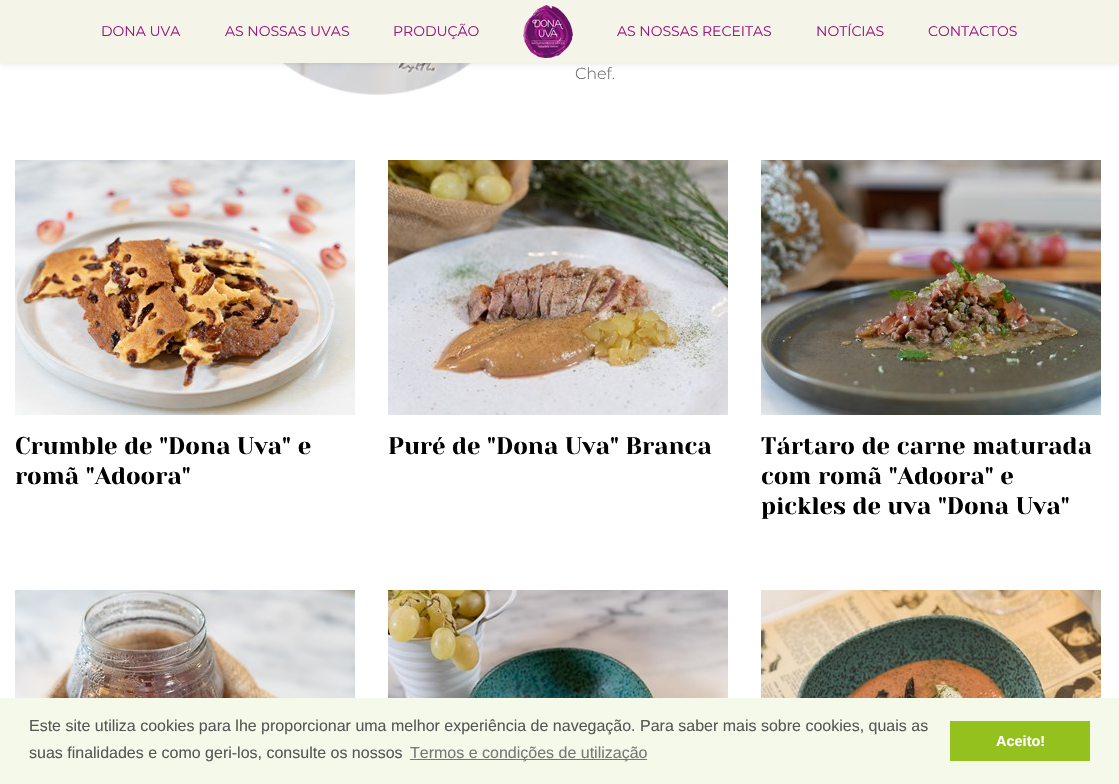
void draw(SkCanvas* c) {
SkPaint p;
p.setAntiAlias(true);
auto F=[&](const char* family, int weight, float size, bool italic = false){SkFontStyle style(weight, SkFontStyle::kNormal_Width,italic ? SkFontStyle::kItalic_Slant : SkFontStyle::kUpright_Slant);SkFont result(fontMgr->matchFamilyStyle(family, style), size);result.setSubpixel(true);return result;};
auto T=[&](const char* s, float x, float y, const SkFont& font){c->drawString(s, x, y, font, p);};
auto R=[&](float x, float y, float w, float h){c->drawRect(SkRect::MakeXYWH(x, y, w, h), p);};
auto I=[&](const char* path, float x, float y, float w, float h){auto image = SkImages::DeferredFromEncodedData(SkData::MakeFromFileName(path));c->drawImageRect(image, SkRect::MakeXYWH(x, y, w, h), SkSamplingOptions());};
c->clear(0xffffffff);
I("2.png",233,63,288,32);
p.setColor(0x12000000);
p.setMaskFilter(SkMaskFilter::MakeBlur(kNormal_SkBlurStyle, 2));
c->drawRect(SkRect::MakeXYWH(0,2,1119,63),p);
p.setMaskFilter(nullptr);
p.setColor(0xfff4f4e8);
R(0,0,1119,63);
auto f1 = F("Montserrat",400,14);
p.setColor(0xff9c1980);
T("DONA UVA",101,36,f1);
T("AS NOSSAS UVAS",225,36,f1);
T("PRODUÇÃO",393,36,f1);
I("1.png",523,5,50,53);
T("AS NOSSAS RECEITAS",617,36,f1);
T("NOTÍCIAS",816,36,f1);
T("CONTACTOS",928,36,f1);
auto f2 = F("Montserrat",300,16);
p.setColor(0xff666666);
T("Chef.",575,79,f2);
I("3.png",15,160,340,255);
auto f3 = F("Yeseva One",400,24);
p.setColor(0xff000000);
T("Crumble de \"Dona Uva\" e",15,454,f3);
T("romã \"Adoora\"",15,484,f3);
I("4.png",388,160,340,255);
T("Puré de \"Dona Uva\" Branca",388,454,f3);
I("5.png",761,160,340,255);
T("Tártaro de carne maturada",761,454,f3);
T("com romã \"Adoora\" e",761,484,f3);
T("pickles de uva \"Dona Uva\"",761,514,f3);
I("6.png",15,590,340,108);
I("7.png",388,590,340,108);
I("8.png",761,590,340,108);
p.setColor(0xfff5f9e9);
R(0,698,1119,86);
auto f4 = F("Liberation Sans",400,16);
p.setColor(0xff575757);
T("Este site utiliza cookies para lhe proporcionar uma melhor experiência de navegação. Para saber mais sobre cookies, quais as",29,731,f4);
T("suas finalidades e como geri-los, consulte os nossos",29,758,f4);
p.setColor(0xff777774);
R(410,759,237,1);
T("Termos e condições de utilização",410,758,f4);
p.setColor(0xff95c11f);
R(950,721,140,40);
auto f5 = F("Liberation Sans",700,14.5);
p.setColor(0xffffffff);
T("Aceito!",996,746,f5);
}
